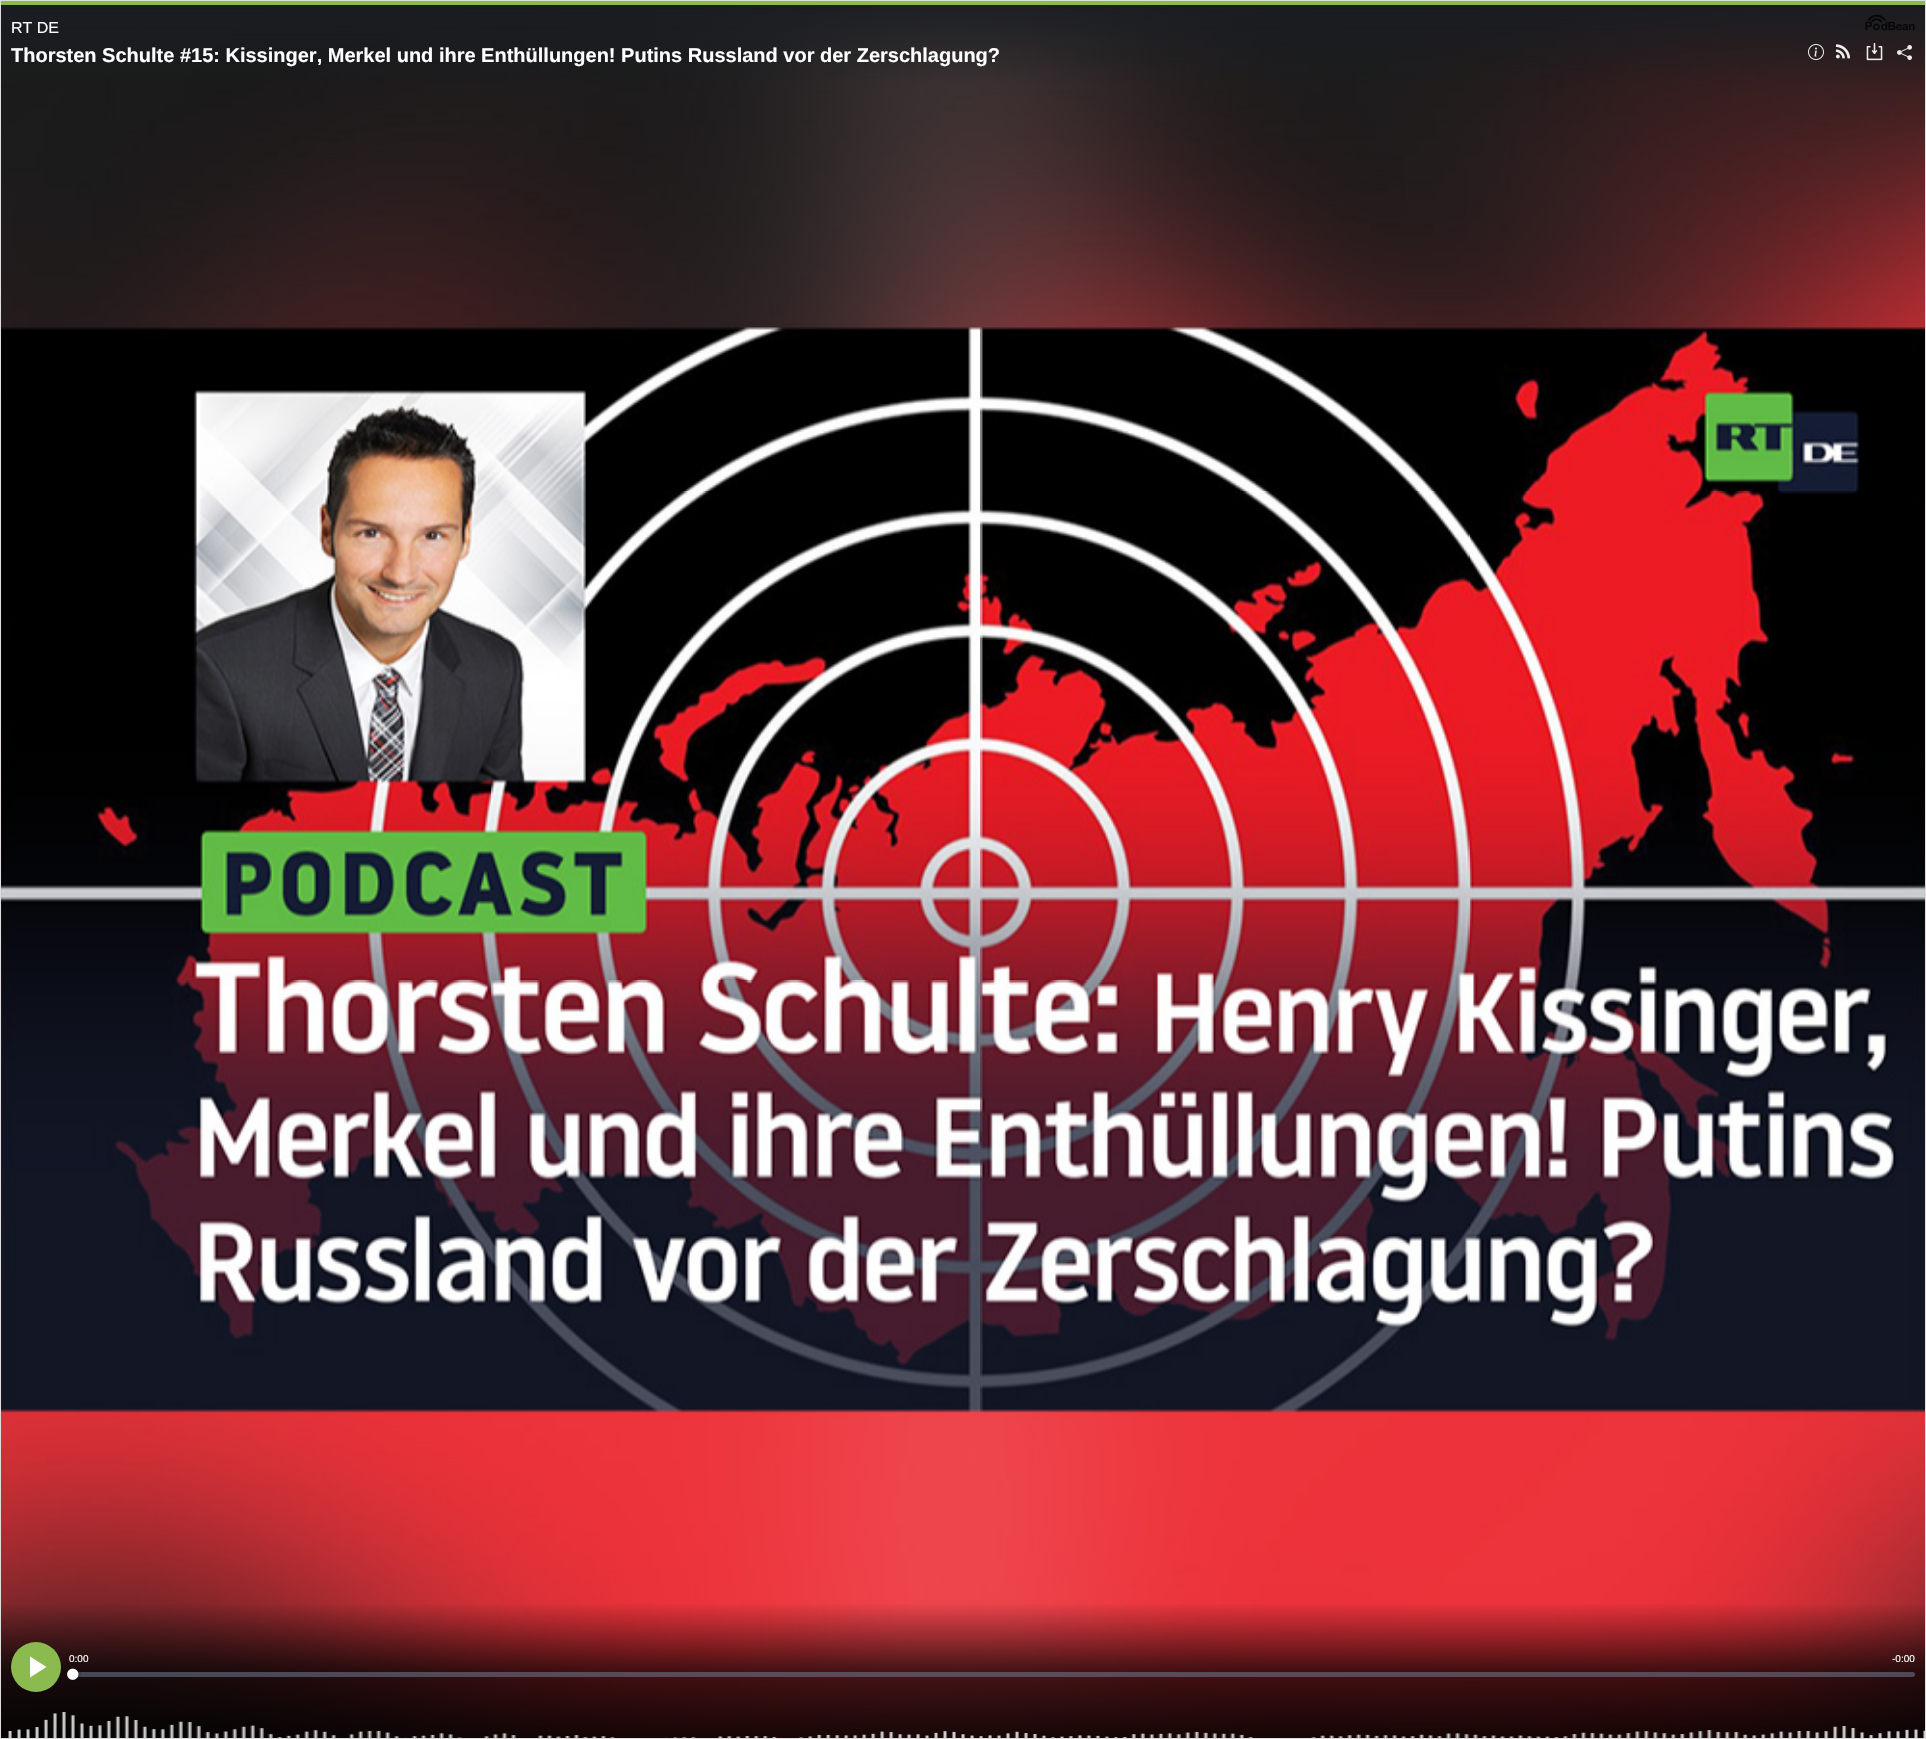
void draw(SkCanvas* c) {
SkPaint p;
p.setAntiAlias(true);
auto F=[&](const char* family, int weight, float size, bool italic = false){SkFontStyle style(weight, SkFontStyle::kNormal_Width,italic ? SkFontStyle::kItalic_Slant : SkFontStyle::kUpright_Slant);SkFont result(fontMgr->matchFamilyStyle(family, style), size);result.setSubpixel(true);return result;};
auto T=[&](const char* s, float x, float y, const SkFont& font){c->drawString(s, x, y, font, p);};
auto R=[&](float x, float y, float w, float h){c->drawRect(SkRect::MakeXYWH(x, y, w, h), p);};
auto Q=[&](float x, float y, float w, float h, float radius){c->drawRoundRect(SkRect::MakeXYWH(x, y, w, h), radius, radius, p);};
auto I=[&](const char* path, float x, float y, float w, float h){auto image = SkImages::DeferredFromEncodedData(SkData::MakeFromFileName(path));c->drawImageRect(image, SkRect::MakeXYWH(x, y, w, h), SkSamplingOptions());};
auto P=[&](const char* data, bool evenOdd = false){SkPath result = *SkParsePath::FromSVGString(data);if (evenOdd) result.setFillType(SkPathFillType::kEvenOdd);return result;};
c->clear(0xffffffff);
p.setStroke(true);
p.setStrokeWidth(1);
p.setColor(0xffdedede);
c->drawRect(SkRect::MakeXYWH(.5,.5,1925,1738),p);
I("1.png",1,5,1924,1733);
p.setStroke(false);
p.setColor(0xff8bbb4e);
R(1,1,1924,4);
auto f1 = F("Liberation Sans",400,16);
p.setColor(0xffffffff);
T("RT DE",11,33,f1);
I("2.png",1865,14,50,17);
auto f2 = F("Liberation Sans",700,20);
T("Thorsten Schulte #15: Kissinger, Merkel und ihre Enthüllungen! Putins Russland vor der Zerschlagung?",11,62,f2);
I("3.png",1808,44,16,16);
I("4.png",1835,44,16,15);
I("5.png",1866,42,17,19);
I("6.png",1897,45,15,15);
{
const SkColor colors[] = {0x00000000,0xb3000000,0xe6000000};
const float stops[] = {0,.5,1};
const SkPoint ends[] = {{963,1602}, {963,1738}};
p.setShader(SkGradientShader::MakeLinear(ends, colors, stops, 3, SkTileMode::kClamp));
p.setAlpha(255);
}
R(1,1604,1924,134);
p.setShader(nullptr);
p.setColor(0xff8bbb4e);
c->drawCircle(36,1667,25,p);
p.setColor(0xffffffff);
c->drawPath(P("M30 1656.5v21l16.5-10.5z"),p);
auto f3 = F("Liberation Sans",400,10);
T("0:00",69,1662,f3);
T("-0:00",1892,1662,f3);
p.setColor(0x8073859f);
Q(69,1672,1846,5,2.5);
p.setColor(0x24000000);
p.setMaskFilter(SkMaskFilter::MakeBlur(kNormal_SkBlurStyle, .5));
c->drawRoundRect(SkRect::MakeXYWH(65,1667,16,15),7.5,7.5,p);
p.setMaskFilter(nullptr);
I("7.png",67,1668,12,12);
I("8.png",8,1712,1917,26);
}
